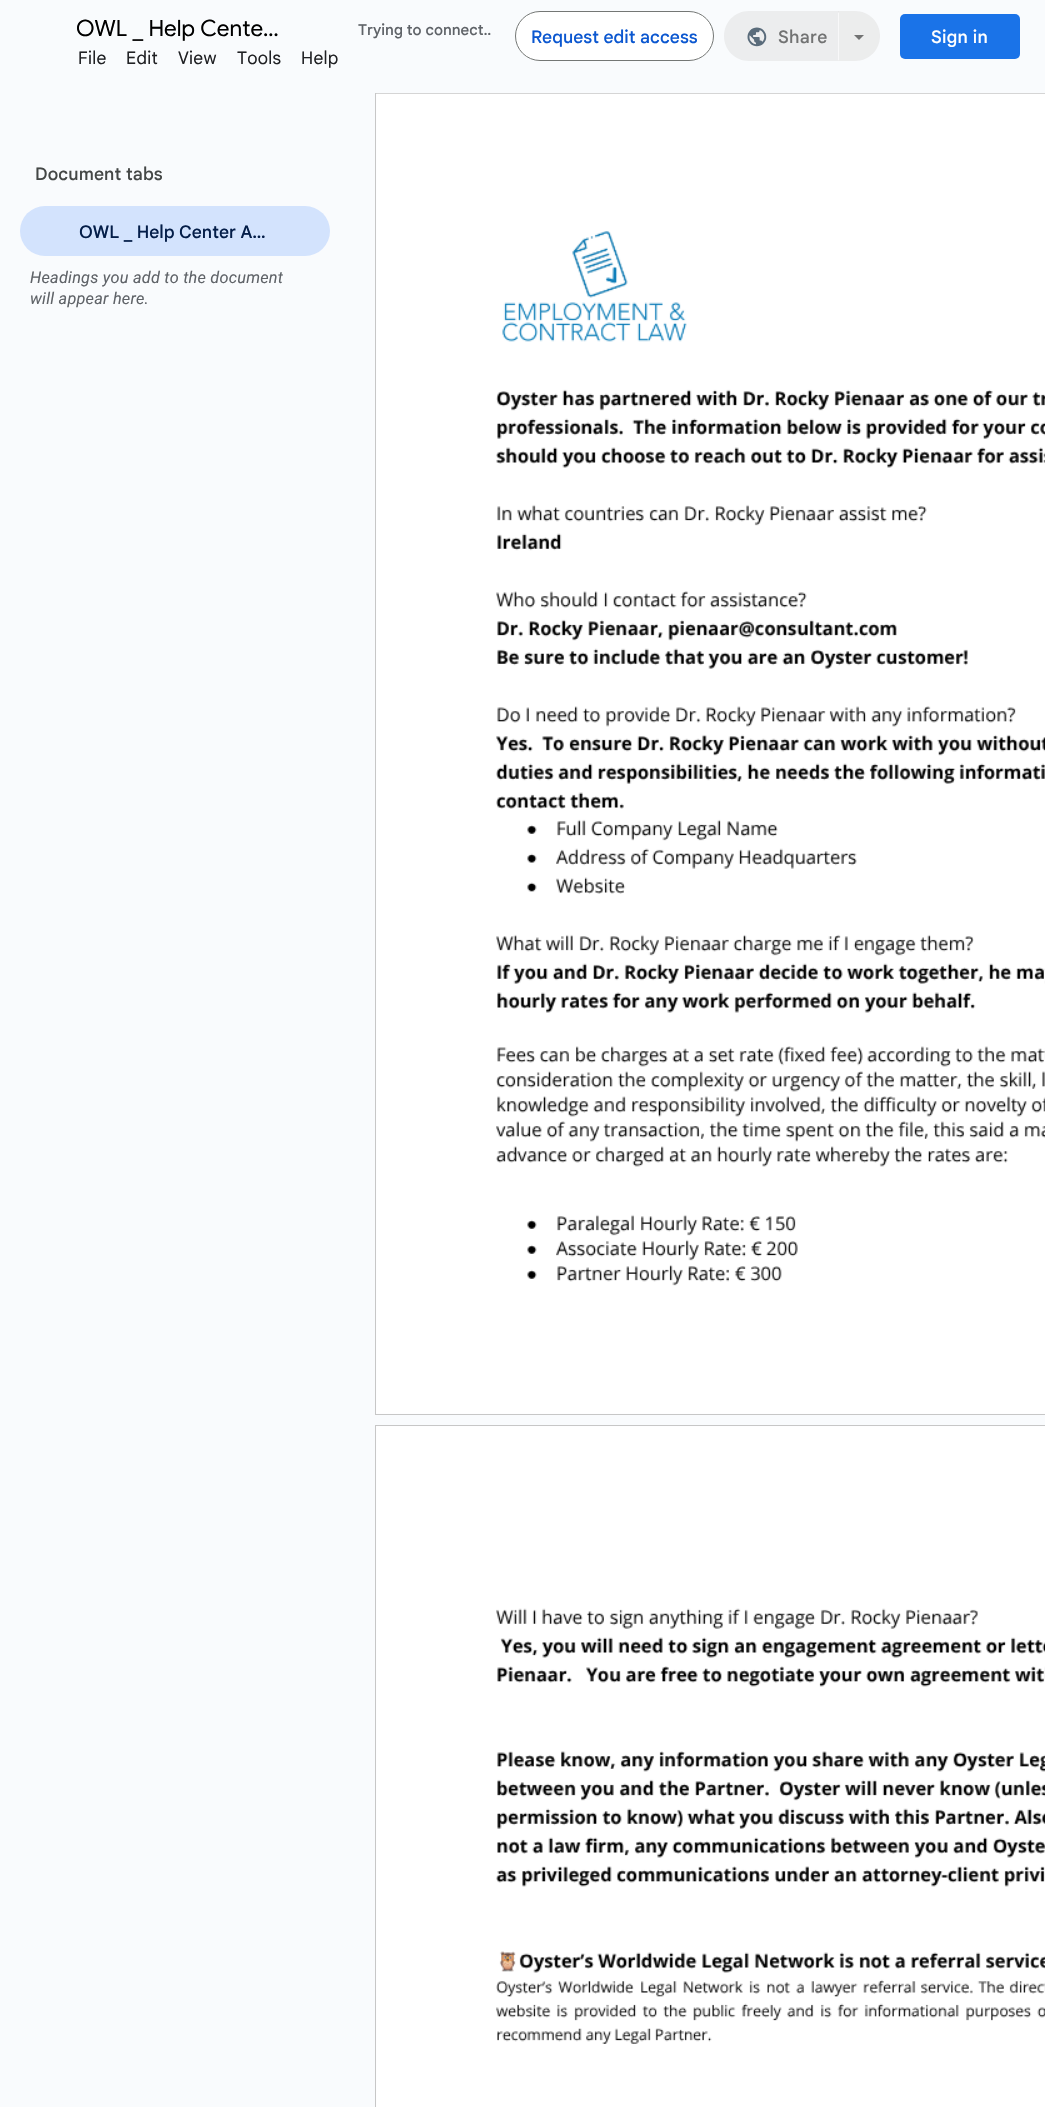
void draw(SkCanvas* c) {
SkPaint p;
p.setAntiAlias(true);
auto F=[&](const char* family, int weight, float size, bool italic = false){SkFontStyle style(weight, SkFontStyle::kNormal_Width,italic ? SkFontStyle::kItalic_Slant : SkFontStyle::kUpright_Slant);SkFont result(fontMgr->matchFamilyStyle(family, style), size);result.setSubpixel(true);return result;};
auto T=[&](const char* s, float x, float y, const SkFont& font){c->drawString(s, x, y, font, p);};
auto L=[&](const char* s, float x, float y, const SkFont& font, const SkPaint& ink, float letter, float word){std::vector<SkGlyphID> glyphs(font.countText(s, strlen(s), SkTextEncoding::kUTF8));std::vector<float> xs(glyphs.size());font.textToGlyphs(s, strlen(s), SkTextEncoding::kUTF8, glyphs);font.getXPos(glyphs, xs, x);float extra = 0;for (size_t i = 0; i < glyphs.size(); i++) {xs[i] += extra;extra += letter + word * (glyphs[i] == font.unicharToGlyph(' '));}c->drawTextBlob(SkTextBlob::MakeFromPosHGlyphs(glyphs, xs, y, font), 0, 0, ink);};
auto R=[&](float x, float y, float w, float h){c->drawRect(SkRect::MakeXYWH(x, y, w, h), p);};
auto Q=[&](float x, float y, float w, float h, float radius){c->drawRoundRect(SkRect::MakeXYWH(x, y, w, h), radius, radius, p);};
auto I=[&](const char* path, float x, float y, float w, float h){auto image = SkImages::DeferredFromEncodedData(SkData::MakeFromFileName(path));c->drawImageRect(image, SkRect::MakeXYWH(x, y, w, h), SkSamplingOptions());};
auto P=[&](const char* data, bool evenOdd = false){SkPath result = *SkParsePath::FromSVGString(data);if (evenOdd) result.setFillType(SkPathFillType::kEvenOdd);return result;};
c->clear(0xfff9fbfd);
auto f1 = F("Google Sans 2",400,22.5);
p.setColor(0xff000000);
T("OWL _ Help Cente…",76,36,f1);
auto f2 = F("Google Sans",500,15);
p.setColor(0xff5f6368);
T("Trying to connect…",358,35,f2);
p.setColor(0xfff9fbfd);
R(491,32,3,4);
p.setColor(0xffffffff);
c->drawRoundRect(SkRect::MakeXYWH(515.5,11.5,198,49),24.5,24.5,p);
p.setStroke(true);
p.setStrokeWidth(1);
p.setColor(0xff747775);
c->drawRoundRect(SkRect::MakeXYWH(515.5,11.5,198,49),24.5,24.5,p);
auto f3 = F("Google Sans",500,17.5);
p.setStroke(false);
p.setColor(0xff0b57d0);
T("Request edit access",531,43,f3);
p.setColor(0xffecedee);
c->drawPath(P("M749 11h90v50h-90c-14 0-25-11-25-25c0-14 11-25 25-25z"),p);
I("1.png",747,27,20,20);
p.setColor(0xff727373);
L("Share",778,43,f3,p,.25,0);
p.setColor(0x9ee4e4e4);
c->drawPath(P("M838 11h17c14 0 25 11 25 25c0 14-11 25-25 25h-17z"),p);
p.setColor(0xfff8f8f9);
c->drawPath(P("M838 61v-49l1 1v47z"),p);
p.setColor(0xff727373);
c->drawPath(P("M854 35h10l-5 5z"),p);
p.setColor(0xff1a73e8);
Q(900,14,120,45,5);
p.setColor(0xffffffff);
L("Sign in",931,43,f3,p,.25,0);
auto f4 = F("Google Sans",400,17.5);
p.setColor(0xff202124);
L("File",78,64,f4,p,.25,0);
L("Edit",126,64,f4,p,.25,0);
L("View",178,64,f4,p,.25,0);
L("Tools",237,64,f4,p,.25,0);
L("Help",301,64,f4,p,.25,0);
p.setColor(0xff444746);
L("Document tabs",35,180,f3,p,.1,0);
p.setColor(0xffd3e3fd);
Q(20,206,310,50,25);
p.setColor(0xff041e49);
T("OWL _ Help Center A…",79,238,f3);
auto f5 = F("Roboto",400,16.25,true);
p.setColor(0xff5f6368);
L("Headings you add to the document",30,283,f5,p,.25,0);
L("will appear here.",30,304,f5,p,.25,0);
p.setStroke(true);
p.setColor(0xffc7c7c7);
c->drawRect(SkRect::MakeXYWH(375.5,93.5,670,1321),p);
I("2.png",376,93,669,1321);
c->drawRect(SkRect::MakeXYWH(375.5,1425.5,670,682),p);
I("3.png",376,1426,669,681);
}
